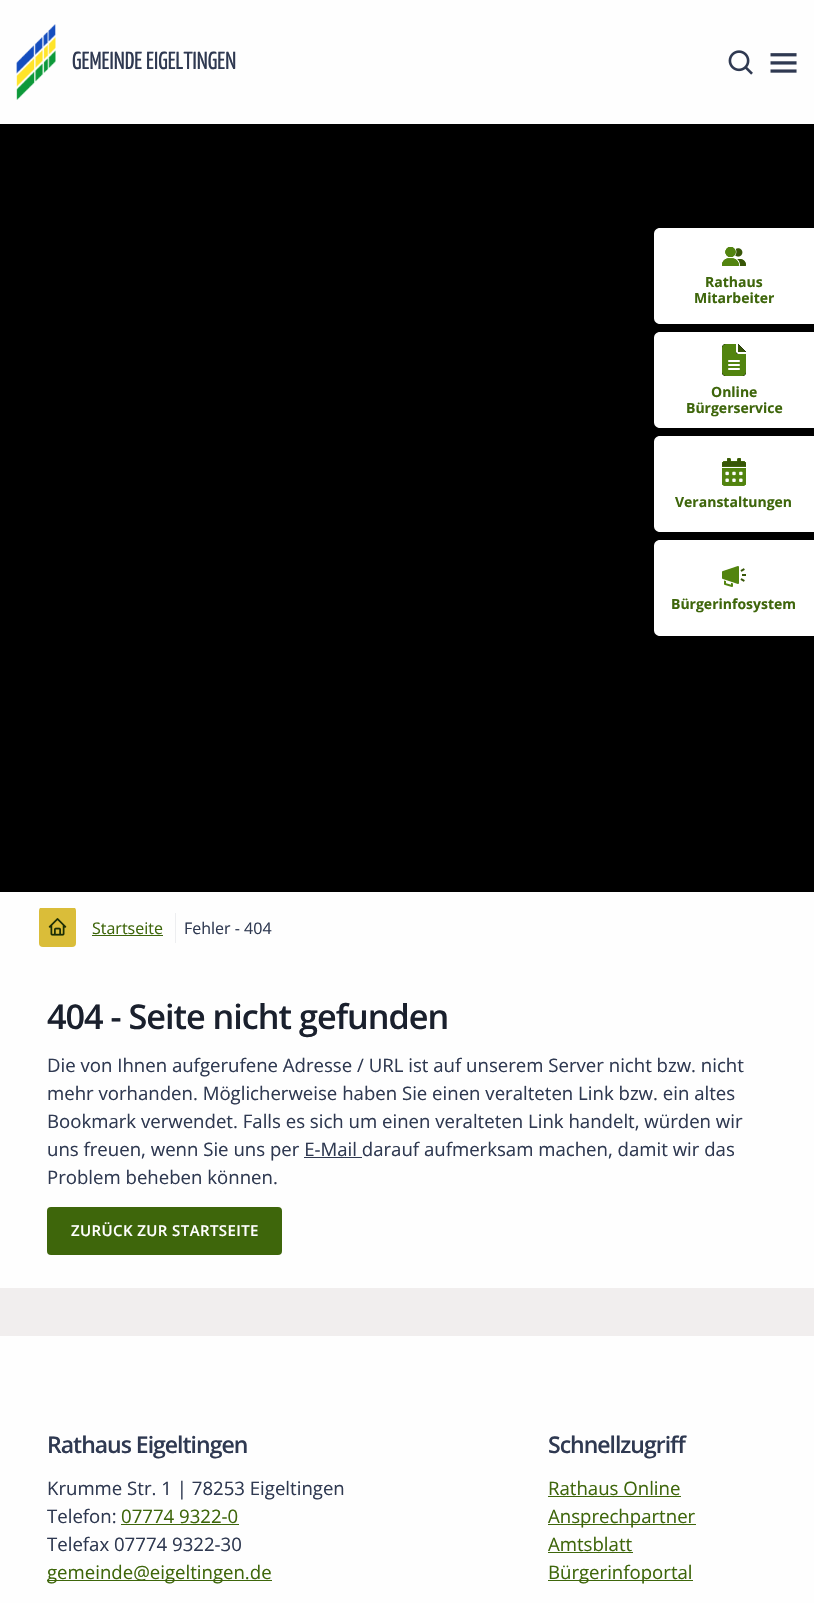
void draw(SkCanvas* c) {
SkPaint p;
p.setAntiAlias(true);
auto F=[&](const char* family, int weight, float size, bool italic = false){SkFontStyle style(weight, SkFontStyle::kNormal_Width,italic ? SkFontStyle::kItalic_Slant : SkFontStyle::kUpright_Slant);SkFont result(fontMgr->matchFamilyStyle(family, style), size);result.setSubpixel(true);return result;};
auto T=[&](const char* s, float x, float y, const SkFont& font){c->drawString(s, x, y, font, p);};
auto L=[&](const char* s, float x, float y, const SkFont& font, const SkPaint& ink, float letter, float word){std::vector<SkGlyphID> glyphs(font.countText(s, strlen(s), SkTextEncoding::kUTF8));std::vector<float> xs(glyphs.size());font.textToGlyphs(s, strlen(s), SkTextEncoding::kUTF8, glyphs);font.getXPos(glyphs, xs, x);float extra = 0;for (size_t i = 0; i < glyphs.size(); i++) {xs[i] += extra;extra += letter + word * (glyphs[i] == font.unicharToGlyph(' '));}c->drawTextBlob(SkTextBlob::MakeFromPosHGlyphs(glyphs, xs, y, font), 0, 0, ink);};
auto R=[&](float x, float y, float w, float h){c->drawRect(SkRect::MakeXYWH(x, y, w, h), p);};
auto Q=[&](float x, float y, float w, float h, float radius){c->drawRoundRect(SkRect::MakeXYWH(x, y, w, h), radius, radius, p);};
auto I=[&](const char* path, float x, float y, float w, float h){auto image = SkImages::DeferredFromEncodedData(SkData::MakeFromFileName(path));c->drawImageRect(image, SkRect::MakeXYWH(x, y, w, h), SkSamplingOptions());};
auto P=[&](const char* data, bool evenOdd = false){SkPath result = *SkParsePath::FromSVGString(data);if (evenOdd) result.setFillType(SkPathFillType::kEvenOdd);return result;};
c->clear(0xfffefefe);
I("1.png",16,24,40,76);
auto f1 = F("Yanone Kaffeesatz",200,24.75);
p.setColor(0xff2f3951);
T("GEMEINDE EIGELTINGEN",72,69,f1);
I("2.png",728,50,25,25);
I("3.png",770,53,27,20);
p.setColor(0xff000000);
R(0,124,814,768);
p.setColor(0xffffffff);
c->drawPath(P("M660 228h154v96h-154c-3.5 0-6-2.5-6-6v-84c0-3.5 2.5-6 6-6z"),p);
I("4.png",722,247,24,19);
auto f2 = F("Open Sans",700,14);
p.setColor(0xff3e660b);
T("Rathaus",705,287,f2);
T("Mitarbeiter",694,303,f2);
p.setColor(0xffffffff);
c->drawPath(P("M660 332h154v96h-154c-3.5 0-6-2.5-6-6v-84c0-3.5 2.5-6 6-6z"),p);
I("5.png",722,344,24,32);
p.setColor(0xff3e660b);
T("Online",711,397,f2);
T("Bürgerservice",686,413,f2);
p.setColor(0xffffffff);
c->drawPath(P("M660 436h154v96h-154c-3.5 0-6-2.5-6-6v-84c0-3.5 2.5-6 6-6z"),p);
I("6.png",722,458,24,28);
p.setColor(0xff3e660b);
T("Veranstaltungen",675,507,f2);
p.setColor(0xffffffff);
c->drawPath(P("M660 540h154v96h-154c-3.5 0-6-2.5-6-6v-84c0-3.5 2.5-6 6-6z"),p);
I("7.png",722,566,24,21);
p.setColor(0xff3e660b);
T("Bürgerinfosystem",671,609,f2);
c->save();
c->clipRect(SkRect::MakeXYWH(31,908,752,39));
p.setColor(0xffdabd39);
Q(39,907,37,40,4);
c->restore();
I("8.png",48,918,19,18);
auto f3 = F("Open Sans",400,16);
p.setColor(0xff3e660b);
T("Startseite",92,934,f3);
R(92,935,71,1);
p.setColor(0xff2f3951);
T("Fehler - 404",184,934,f3);
p.setColor(0xffedeef0);
R(175,913,1,30);
auto f4 = F("Open Sans",600,34.2);
p.setColor(0xff1a202d);
L("404 - Seite nicht gefunden",47,1029,f4,p,-1,0);
auto f5 = F("Open Sans",400,18.6);
p.setColor(0xff2f3951);
T("Die von Ihnen aufgerufene Adresse / URL ist auf unserem Server nicht bzw. nicht",47,1072,f5);
T("mehr vorhanden. Möglicherweise haben Sie einen veralteten Link bzw. ein altes",47,1100,f5);
T("Bookmark verwendet. Falls es sich um einen veralteten Link handelt, würden wir",47,1128,f5);
T("uns freuen, wenn Sie uns per E-Mail darauf aufmerksam machen, damit wir das",47,1156,f5);
R(304,1157,58,1);
T("Problem beheben können.",47,1184,f5);
p.setColor(0xff3e660b);
Q(47,1207,235,48,4);
auto f6 = F("Open Sans",600,15);
p.setColor(0xffffffff);
L("ZURÜCK ZUR STARTSEITE",71,1236,f6,p,.4,0);
p.setColor(0xfff1eeee);
R(0,1288,814,48);
auto f7 = F("Open Sans",600,23);
p.setColor(0xff2f3951);
L("Rathaus Eigeltingen",47,1453,f7,p,-1,0);
T("Krumme Str. 1 | 78253 Eigeltingen",47,1495,f5);
T("Telefon:",47,1523,f5);
p.setColor(0xff3e660b);
T("07774 9322-0",121,1523,f5);
R(121,1524,118,1);
p.setColor(0xff2f3951);
T("Telefax 07774 9322-30",47,1551,f5);
p.setColor(0xff3e660b);
R(47,1580,225,1);
T("gemeinde@eigeltingen.de",47,1579,f5);
p.setColor(0xff2f3951);
L("Schnellzugriff",548,1453,f7,p,-1,0);
p.setColor(0xff3e660b);
T("Rathaus Online",548,1495,f5);
R(548,1496,133,1);
R(548,1524,148,1);
T("Ansprechpartner",548,1523,f5);
T("Amtsblatt",548,1551,f5);
R(548,1552,85,1);
R(548,1580,145,1);
T("Bürgerinfoportal",548,1579,f5);
}
